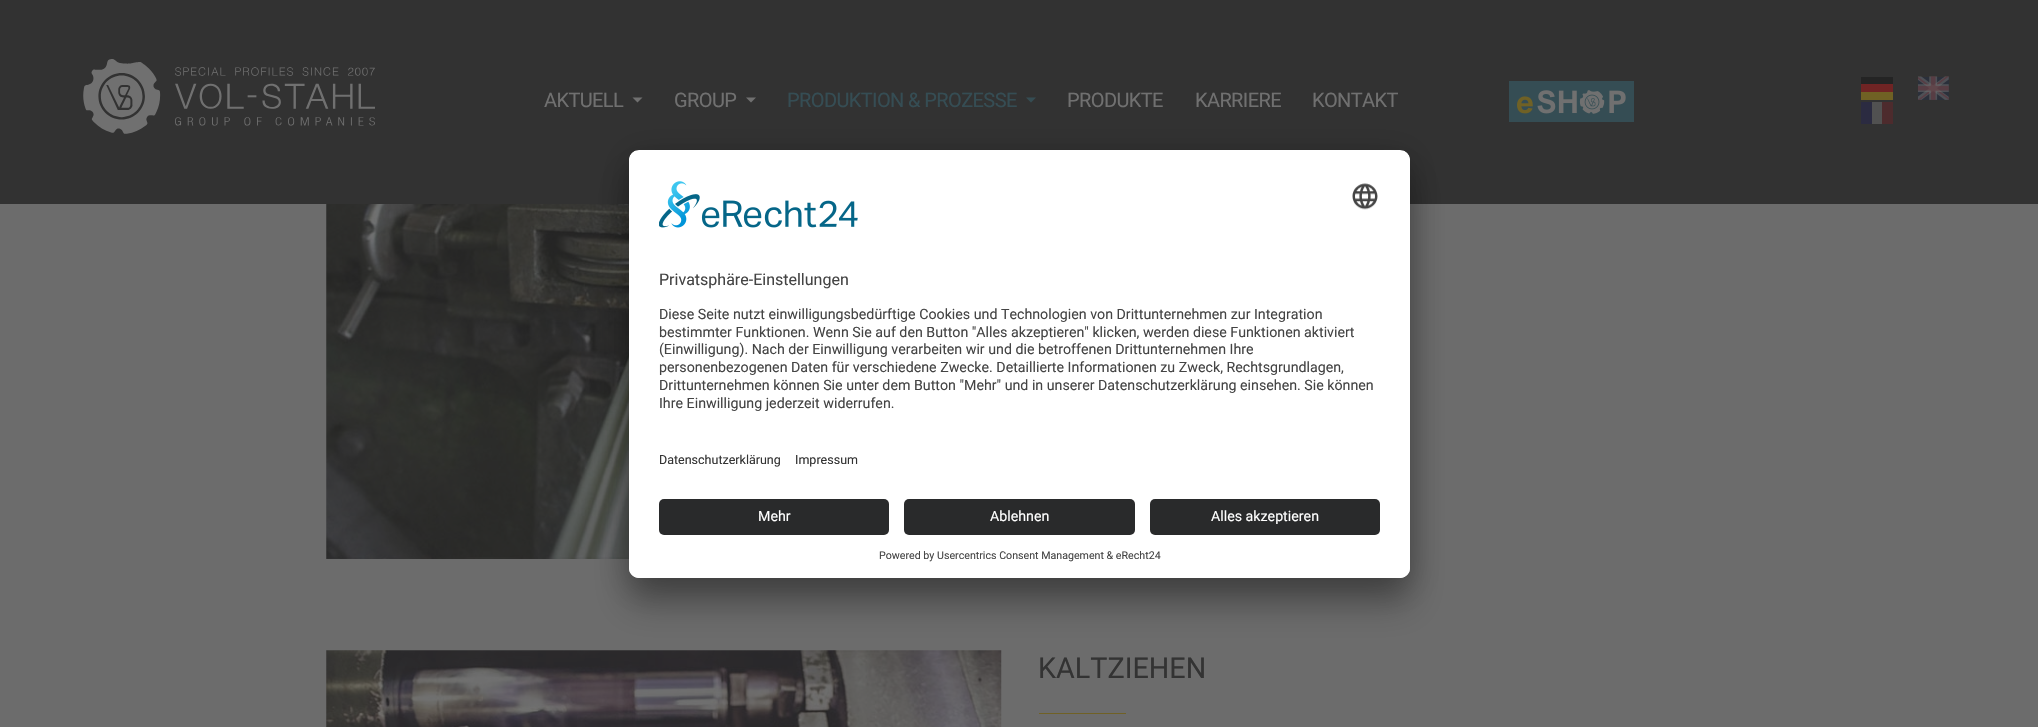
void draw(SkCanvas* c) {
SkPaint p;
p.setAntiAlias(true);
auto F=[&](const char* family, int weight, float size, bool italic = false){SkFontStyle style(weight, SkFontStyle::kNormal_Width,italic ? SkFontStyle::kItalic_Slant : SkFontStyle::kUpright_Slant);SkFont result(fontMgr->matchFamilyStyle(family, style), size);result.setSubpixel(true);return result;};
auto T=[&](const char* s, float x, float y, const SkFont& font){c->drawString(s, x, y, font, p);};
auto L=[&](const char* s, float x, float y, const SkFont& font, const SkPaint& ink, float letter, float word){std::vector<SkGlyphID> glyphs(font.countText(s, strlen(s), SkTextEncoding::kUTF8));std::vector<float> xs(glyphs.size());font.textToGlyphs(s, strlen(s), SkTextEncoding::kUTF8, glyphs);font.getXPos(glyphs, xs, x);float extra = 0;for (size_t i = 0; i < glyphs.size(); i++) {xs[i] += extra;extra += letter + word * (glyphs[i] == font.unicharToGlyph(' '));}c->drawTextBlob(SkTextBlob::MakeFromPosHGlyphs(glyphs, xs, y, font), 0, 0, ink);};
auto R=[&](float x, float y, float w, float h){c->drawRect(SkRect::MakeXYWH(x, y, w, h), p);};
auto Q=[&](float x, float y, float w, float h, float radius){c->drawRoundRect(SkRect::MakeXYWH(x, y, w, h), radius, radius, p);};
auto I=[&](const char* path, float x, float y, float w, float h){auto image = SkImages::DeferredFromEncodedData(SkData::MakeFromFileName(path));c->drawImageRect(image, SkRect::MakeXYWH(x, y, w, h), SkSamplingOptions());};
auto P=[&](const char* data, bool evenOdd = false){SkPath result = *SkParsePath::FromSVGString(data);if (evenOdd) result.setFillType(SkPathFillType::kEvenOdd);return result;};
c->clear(0xff6c6c6c);
p.setColor(0xff323232);
R(0,0,2038,204);
I("1.png",83,59,292,75);
auto f1 = F("Roboto",400,20);
p.setColor(0xff707070);
L("AKTUELL",544,107,f1,p,-.6,0);
c->drawPath(P("M632.5 97.5h10l-5 5z"),p);
L("GROUP",674,107,f1,p,-.6,0);
c->drawPath(P("M746 97.5h10l-5 5z"),p);
p.setColor(0xff354d54);
L("PRODUKTION & PROZESSE",787,107,f1,p,-.6,0);
c->drawPath(P("M1026 97.5h10l-5 5z"),p);
p.setColor(0xff707070);
L("PRODUKTE",1067,107,f1,p,-.6,0);
L("KARRIERE",1195,107,f1,p,-.6,0);
L("KONTAKT",1312,107,f1,p,-.6,0);
I("2.png",1509,81,125,41);
p.setColor(0xff242424);
R(1861,77,32,7);
p.setColor(0xff702424);
R(1861,84,32,8);
p.setColor(0xff706124);
R(1861,92,32,8);
I("3.png",1918,76,31,24);
p.setColor(0xff2b2b41);
R(1861,102,11,22);
p.setColor(0xff515151);
R(1872,102,10,22);
p.setColor(0xff4d2b2d);
R(1882,102,11,22);
I("6.png",326,204,303,355);
I("7.png",326,650,676,77);
p.setColor(0x4d000000);
p.setMaskFilter(SkMaskFilter::MakeBlur(kNormal_SkBlurStyle, 17.5));
c->drawRoundRect(SkRect::MakeXYWH(629,175,781,428),10,10,p);
p.setMaskFilter(nullptr);
p.setColor(0x38000000);
p.setMaskFilter(SkMaskFilter::MakeBlur(kNormal_SkBlurStyle, 16));
c->drawRoundRect(SkRect::MakeXYWH(629,156,781,428),10,10,p);
p.setMaskFilter(nullptr);
p.setColor(0xffffffff);
Q(629,150,781,428,10);
c->save();
c->clipPath(P("M639 150h761c5.5 0 10 4.5 10 10v408c0 5.5-4.5 10-10 10h-761c-5.5 0-10-4.5-10-10v-408c0-5.5 4.5-10 10-10z"),true);
c->clipPath(P("M639 150h761c5.5 0 10 4.5 10 10v329h-781v-329c0-5.5 4.5-10 10-10z"),true);
R(629,151,781,338);
c->restore();
I("4.png",659,181,199,47);
I("5.png",1352,183,26,27);
auto f2 = F("Roboto",400,16);
p.setColor(0xff444444);
T("Privatsphäre-Einstellungen",659,285,f2);
auto f3 = F("Roboto",400,14.22);
T("Diese Seite nutzt einwilligungsbedürftige Cookies und Technologien von Drittunternehmen zur Integration",659,319,f3);
T("bestimmter Funktionen. Wenn Sie auf den Button \"Alles akzeptieren\" klicken, werden diese Funktionen aktiviert",659,337,f3);
T("(Einwilligung). Nach der Einwilligung verarbeiten wir und die betroffenen Drittunternehmen Ihre",659,354,f3);
T("personenbezogenen Daten für verschiedene Zwecke. Detaillierte Informationen zu Zweck, Rechtsgrundlagen,",659,372,f3);
T("Drittunternehmen können Sie unter dem Button \"Mehr\" und in unserer Datenschutzerklärung einsehen. Sie können",659,390,f3);
T("Ihre Einwilligung jederzeit widerrufen.",659,408,f3);
auto f4 = F("Roboto",400,12.5);
p.setColor(0xff333333);
T("Datenschutzerklärung",659,464,f4);
T("Impressum",795,464,f4);
p.setColor(0xffffffff);
c->drawPath(P("M629 489h781v79c0 5.5-4.5 10-10 10h-761c-5.5 0-10-4.5-10-10z"),p);
p.setColor(0xff292a2b);
Q(659,499,230,36,5);
p.setColor(0xffffffff);
T("Mehr",758,521,f3);
p.setColor(0xff292a2b);
Q(904,499,231,36,5);
p.setColor(0xffffffff);
T("Ablehnen",990,521,f3);
p.setColor(0xff292a2b);
Q(1150,499,230,36,5);
p.setColor(0xffffffff);
T("Alles akzeptieren",1211,521,f3);
auto f5 = F("Roboto",400,10.65);
p.setColor(0xff444444);
T("Powered by Usercentrics Consent Management & eRecht24",879,559,f5);
auto f6 = F("Roboto",400,28.75);
p.setColor(0xff333333);
T("KALTZIEHEN",1038,678,f6);
p.setColor(0xff706125);
R(1039,713,87,1);
}
